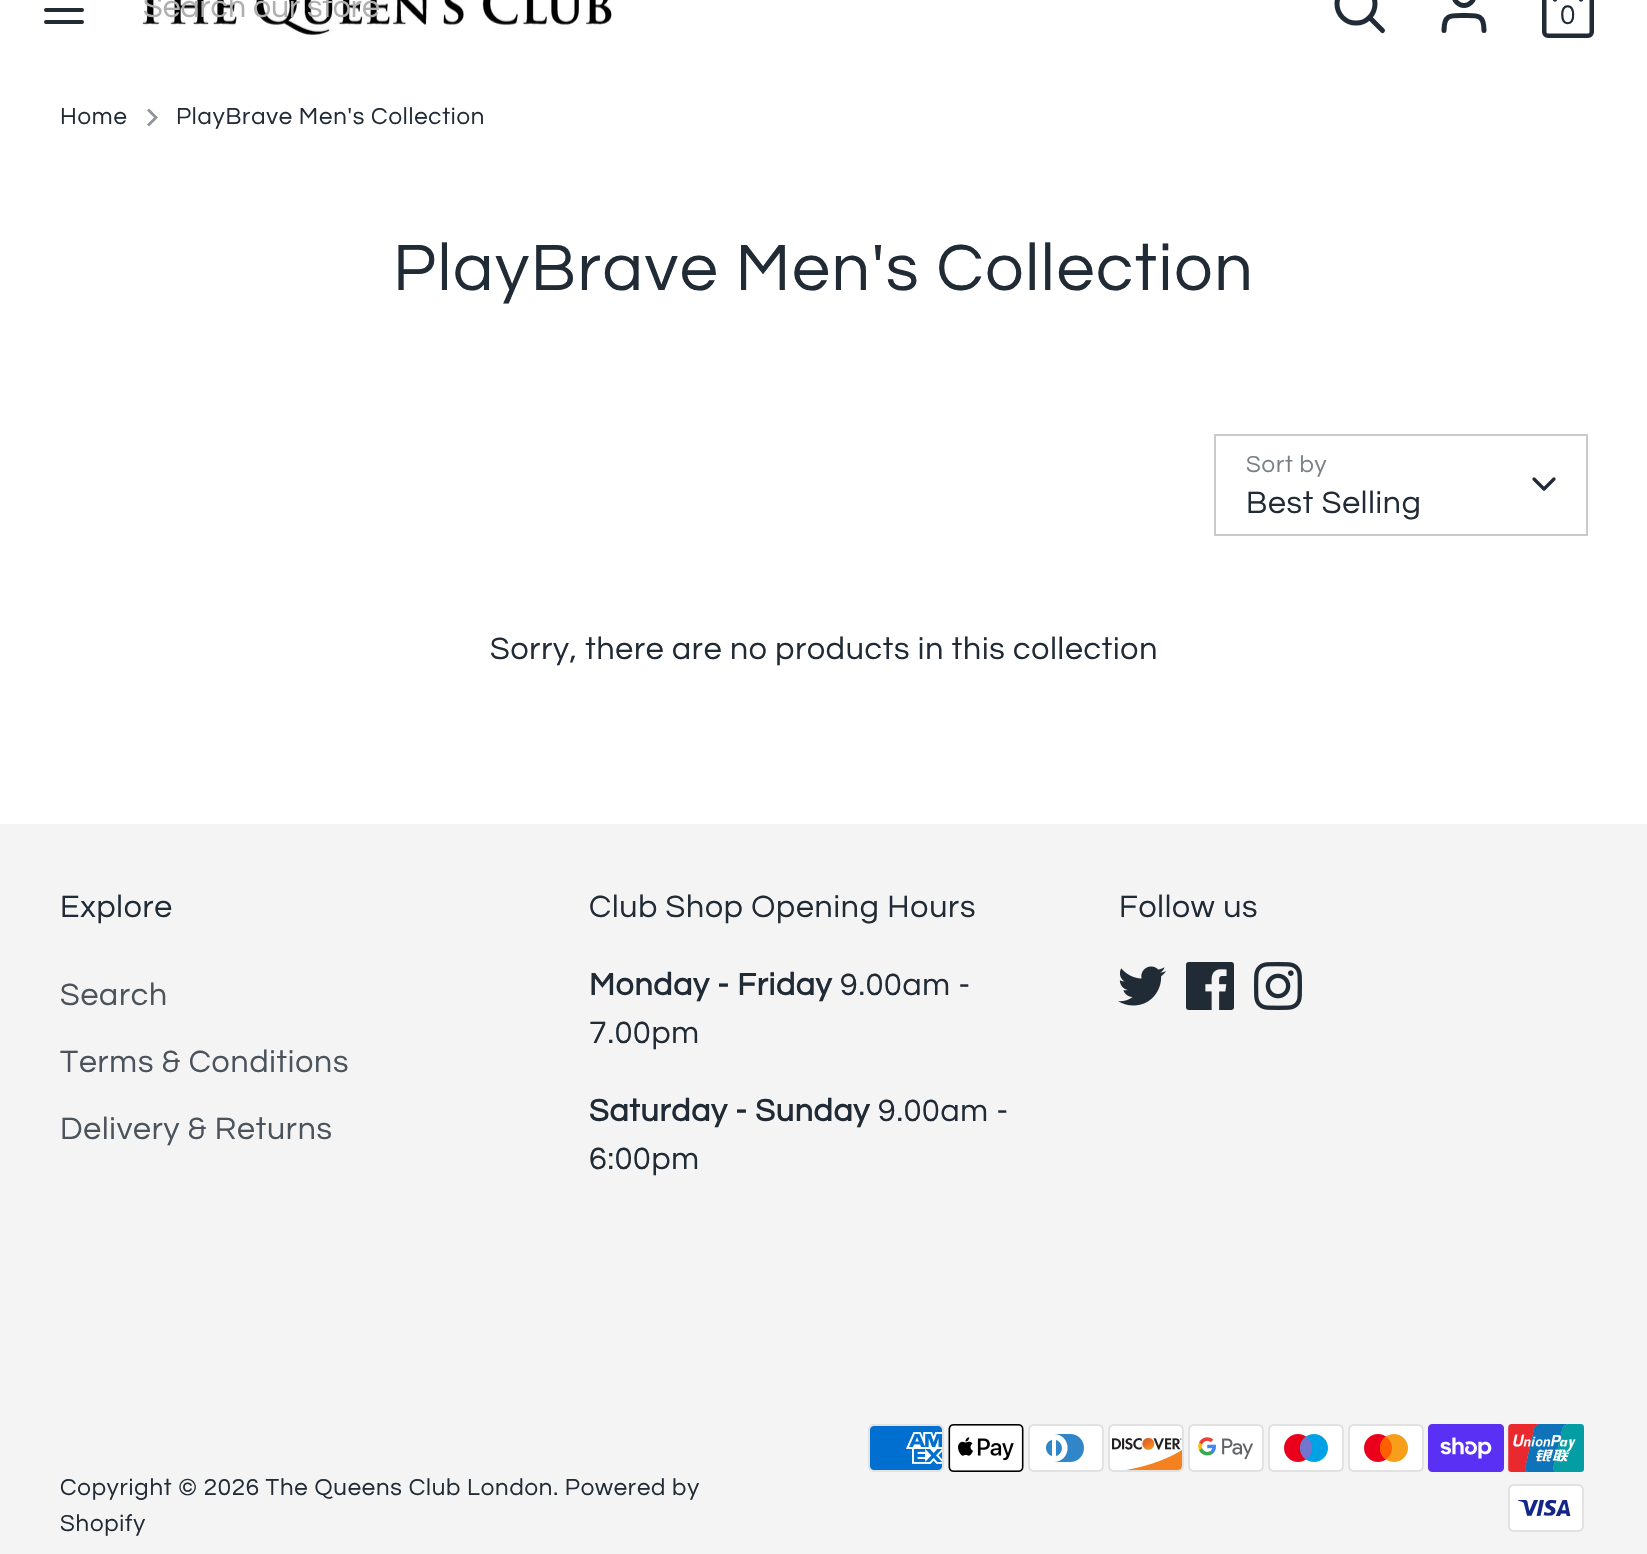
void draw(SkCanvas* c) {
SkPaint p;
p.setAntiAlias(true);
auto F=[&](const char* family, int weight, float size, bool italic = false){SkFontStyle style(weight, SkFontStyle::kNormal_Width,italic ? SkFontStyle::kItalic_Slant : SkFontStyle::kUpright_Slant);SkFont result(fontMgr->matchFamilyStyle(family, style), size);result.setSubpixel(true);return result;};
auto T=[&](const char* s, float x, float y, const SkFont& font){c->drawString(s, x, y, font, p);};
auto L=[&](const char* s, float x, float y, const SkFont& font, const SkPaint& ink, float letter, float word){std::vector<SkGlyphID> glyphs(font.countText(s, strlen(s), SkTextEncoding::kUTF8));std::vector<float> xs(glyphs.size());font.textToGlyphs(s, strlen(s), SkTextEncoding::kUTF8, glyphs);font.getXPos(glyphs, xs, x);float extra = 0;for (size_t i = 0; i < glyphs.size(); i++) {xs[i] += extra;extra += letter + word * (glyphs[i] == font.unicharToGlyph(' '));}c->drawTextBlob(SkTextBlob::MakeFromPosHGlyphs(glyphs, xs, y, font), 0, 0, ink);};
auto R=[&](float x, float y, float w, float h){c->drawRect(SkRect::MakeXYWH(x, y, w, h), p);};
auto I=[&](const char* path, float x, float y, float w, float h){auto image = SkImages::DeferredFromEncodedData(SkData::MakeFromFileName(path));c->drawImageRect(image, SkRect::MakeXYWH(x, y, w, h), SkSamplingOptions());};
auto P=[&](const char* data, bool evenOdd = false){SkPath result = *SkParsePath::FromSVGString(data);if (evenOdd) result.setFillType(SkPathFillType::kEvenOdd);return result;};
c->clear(0xffffffff);
I("1.png",140,0,472,35);
p.setStroke(true);
p.setStrokeWidth(4);
p.setStrokeCap(SkPaint::kRound_Cap);
p.setColor(0xff212b36);
c->drawPath(P("M46 10h36m-36-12h36m-36 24h36"),p);
auto f1 = F("Questrial",400,32);
p.setStroke(false);
p.setColor(0xffafafaf);
T("Search our store",143,17,f1);
p.setStroke(true);
p.setStrokeWidth(5);
p.setStrokeCap(SkPaint::kButt_Cap);
p.setColor(0xff212b36);
c->drawCircle(1356,4,19,p);
p.setStrokeCap(SkPaint::kRound_Cap);
c->drawPath(P("M1382.5 30.5l-13-13"),p);
c->drawPath(P("M1484 30.5c0-16-6-15-20-15c-14 0-20-1-20 15"),p);
p.setStrokeCap(SkPaint::kButt_Cap);
c->drawCircle(1464,-4.5,10,p);
p.setStrokeWidth(4.5);
c->drawRoundRect(SkRect::MakeXYWH(1544.25,-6.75,47.5,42.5),3.75,3.75,p);
p.setStrokeWidth(4.3);
p.setStrokeCap(SkPaint::kRound_Cap);
c->drawPath(P("M1555-.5v-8.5c0-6 5.5-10.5 13-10.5c7 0 12.5 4.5 13 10.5v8.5"),p);
auto f2 = F("Questrial",400,28);
p.setStroke(false);
T("0",1560,24,f2);
auto f3 = F("Questrial",400,24);
L("Home",60,124,f3,p,.8,0);
p.setColor(0xff90959b);
c->drawPath(P("M147 124.5l7-7l-7-7l2-2l9 9l-9 9z"),p);
p.setColor(0xff212b36);
L("PlayBrave Men's Collection",176,124,f3,p,.8,0);
auto f4 = F("Questrial",400,68);
L("PlayBrave Men's Collection",393,290,f4,p,1.7,0);
p.setStroke(true);
p.setStrokeWidth(2);
p.setStrokeCap(SkPaint::kButt_Cap);
p.setColor(0xffc8cacd);
c->drawRect(SkRect::MakeXYWH(1215,435,372,100),p);
p.setStroke(false);
p.setColor(0xff7a8086);
L("Sort by",1246,472,f3,p,.8,0);
p.setStroke(true);
p.setStrokeWidth(3.3);
p.setStrokeCap(SkPaint::kRound_Cap);
p.setStrokeJoin(SkPaint::kRound_Join);
p.setColor(0xff212b36);
c->drawPath(P("M1534 479l10 10l10-10"),p);
p.setStroke(false);
L("Best Selling",1246,513,f1,p,.8,0);
L("Sorry, there are no products in this collection",490,659,f1,p,.8,0);
p.setColor(0xfff4f4f4);
R(0,824,1647,730);
p.setColor(0xff212b36);
L("Explore",60,917,f1,p,.8,0);
p.setColor(0xff4b535c);
L("Search",60,1005,f1,p,.8,0);
L("Terms & Conditions",60,1072,f1,p,.8,0);
L("Delivery & Returns",60,1139,f1,p,.8,0);
p.setColor(0xff212b36);
L("Club Shop Opening Hours",589,917,f1,p,.8,0);
auto f5 = F("Questrial",700,32);
L("Monday - Friday",589,995,f5,p,.8,0);
L("9.00am -",840,995,f1,p,.8,0);
L("7.00pm",589,1043,f1,p,.8,0);
L("Saturday - Sunday",589,1121,f5,p,.8,0);
L("9.00am -",878,1121,f1,p,.8,0);
L("6:00pm",589,1169,f1,p,.8,0);
L("Follow us",1119,917,f1,p,.8,0);
I("2.png",1118,966,48,40);
I("3.png",1186,962,48,48);
I("4.png",1254,962,48,48);
L("Copyright © 2026 The Queens Club London. Powered by",60,1495,f3,p,.8,0);
L("Shopify",60,1531,f3,p,.8,0);
I("5.png",868,1424,76,48);
I("6.png",948,1424,76,48);
I("7.png",1028,1424,76,48);
I("8.png",1108,1424,76,48);
I("9.png",1188,1424,76,48);
I("10.png",1268,1424,76,48);
I("11.png",1348,1424,76,48);
I("12.png",1428,1424,76,48);
I("13.png",1508,1424,76,48);
I("14.png",1508,1484,76,48);
}
